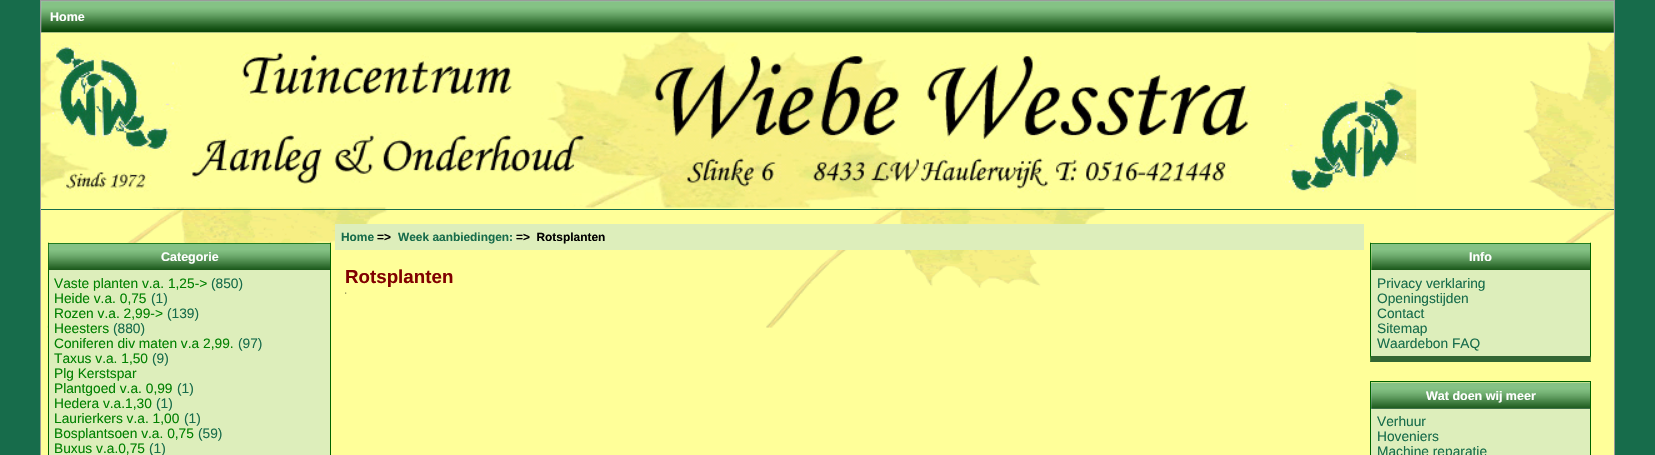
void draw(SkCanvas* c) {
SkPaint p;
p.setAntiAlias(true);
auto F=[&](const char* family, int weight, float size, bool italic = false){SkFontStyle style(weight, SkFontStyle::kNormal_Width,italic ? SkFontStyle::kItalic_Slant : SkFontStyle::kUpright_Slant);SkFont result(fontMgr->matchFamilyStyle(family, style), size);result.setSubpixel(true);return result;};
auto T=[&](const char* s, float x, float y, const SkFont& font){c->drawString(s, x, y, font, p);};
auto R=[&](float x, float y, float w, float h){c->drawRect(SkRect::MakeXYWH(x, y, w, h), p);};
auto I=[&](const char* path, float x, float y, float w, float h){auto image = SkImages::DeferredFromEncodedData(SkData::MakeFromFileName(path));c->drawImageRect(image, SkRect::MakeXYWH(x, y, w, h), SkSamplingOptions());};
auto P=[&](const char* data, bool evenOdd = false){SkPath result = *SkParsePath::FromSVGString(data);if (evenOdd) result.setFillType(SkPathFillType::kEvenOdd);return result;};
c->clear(0xff176c4b);
I("1.png",41,33,1573,422);
p.setStroke(true);
p.setStrokeWidth(1);
p.setColor(0xff9a9a9a);
c->drawRect(SkRect::MakeXYWH(40.5,.5,1574,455),p);
p.setStroke(false);
p.setColor(0xffabbbd3);
R(41,1,1573,32);
I("2.png",41,1,1573,32);
auto f1 = F("Liberation Sans",700,12.5);
p.setColor(0xffffffff);
T("Home",50,21,f1);
p.setColor(0xff176c4b);
R(41,209,1573,1);
I("3.png",41,32,1376,176);
p.setColor(0xff006400);
R(48,243,283,1);
c->drawPath(P("M331 242v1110l-1-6v-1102z"),p);
c->drawPath(P("M48 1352v-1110l1 2v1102z"),p);
I("4.png",48,243,282,27);
p.setColor(0xffffffff);
T("Categorie",161,261,f1);
p.setColor(0xffddeebb);
R(49,270,281,185);
auto f2 = F("Liberation Sans",400,13.75);
p.setColor(0xff008000);
T("Vaste planten v.a. 1,25->",54,288,f2);
p.setColor(0xff176c4b);
T("(850)",211,288,f2);
p.setColor(0xff008000);
T("Heide v.a. 0,75",54,303,f2);
p.setColor(0xff176c4b);
T("(1)",151,303,f2);
p.setColor(0xff008000);
T("Rozen v.a. 2,99->",54,318,f2);
p.setColor(0xff176c4b);
T("(139)",167,318,f2);
p.setColor(0xff008000);
T("Heesters",54,333,f2);
p.setColor(0xff176c4b);
T("(880)",113,333,f2);
p.setColor(0xff008000);
T("Coniferen div maten v.a 2,99.",54,348,f2);
p.setColor(0xff176c4b);
T("(97)",238,348,f2);
p.setColor(0xff008000);
T("Taxus v.a. 1,50",54,363,f2);
p.setColor(0xff176c4b);
T("(9)",152,363,f2);
p.setColor(0xff008000);
T("Plg Kerstspar",54,378,f2);
T("Plantgoed v.a. 0,99",54,393,f2);
p.setColor(0xff176c4b);
T("(1)",177,393,f2);
p.setColor(0xff008000);
T("Hedera v.a.1,30",54,408,f2);
p.setColor(0xff176c4b);
T("(1)",156,408,f2);
p.setColor(0xff008000);
T("Laurierkers v.a. 1,00",54,423,f2);
p.setColor(0xff176c4b);
T("(1)",184,423,f2);
p.setColor(0xff008000);
T("Bosplantsoen v.a. 0,75",54,438,f2);
p.setColor(0xff176c4b);
T("(59)",198,438,f2);
p.setColor(0xff008000);
T("Buxus v.a.0,75",54,453,f2);
p.setColor(0xff176c4b);
T("(1)",149,453,f2);
p.setColor(0xffddeebb);
R(335,224,1029,26);
auto f3 = F("Liberation Sans",700,11.9);
p.setColor(0xff176c4b);
T("Home",341,241,f3);
p.setColor(0xff000000);
T("=>",377,241,f3);
p.setColor(0xff176c4b);
T("Week aanbiedingen:",398,241,f3);
p.setColor(0xff000000);
T("=>  Rotsplanten",516,241,f3);
auto f4 = F("Liberation Sans",700,18.75);
p.setColor(0xff800000);
T("Rotsplanten",345,283,f4);
I("5.png",345,292,2,2);
p.setColor(0xff006400);
R(1370,243,221,1);
c->drawPath(P("M1591 242v120l-1-6v-112z"),p);
p.setColor(0xff336633);
c->drawPath(P("M1591 362h-221l1-6h219z"),p);
p.setColor(0xff006400);
c->drawPath(P("M1370 362v-120l1 2v112z"),p);
I("6.png",1371,243,219,27);
p.setColor(0xffffffff);
T("Info",1469,261,f1);
p.setColor(0xffddeebb);
R(1371,270,219,86);
p.setColor(0xff176c4b);
T("Privacy verklaring",1377,288,f2);
T("Openingstijden",1377,303,f2);
T("Contact",1377,318,f2);
T("Sitemap",1377,333,f2);
T("Waardebon FAQ",1377,348,f2);
p.setColor(0xff006400);
R(1370,381,221,1);
c->drawPath(P("M1591 381v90l-1-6v-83z"),p);
c->drawPath(P("M1370 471v-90l1 1v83z"),p);
p.setColor(0xffabbbd3);
R(1371,383,219,26);
I("7.png",1371,382,219,27);
p.setColor(0xffffffff);
T("Wat doen wij meer",1426,400,f1);
p.setColor(0xffddeebb);
R(1371,409,219,46);
p.setColor(0xff176c4b);
T("Verhuur",1377,426,f2);
T("Hoveniers",1377,441,f2);
T("Machine reparatie",1377,456,f2);
}
